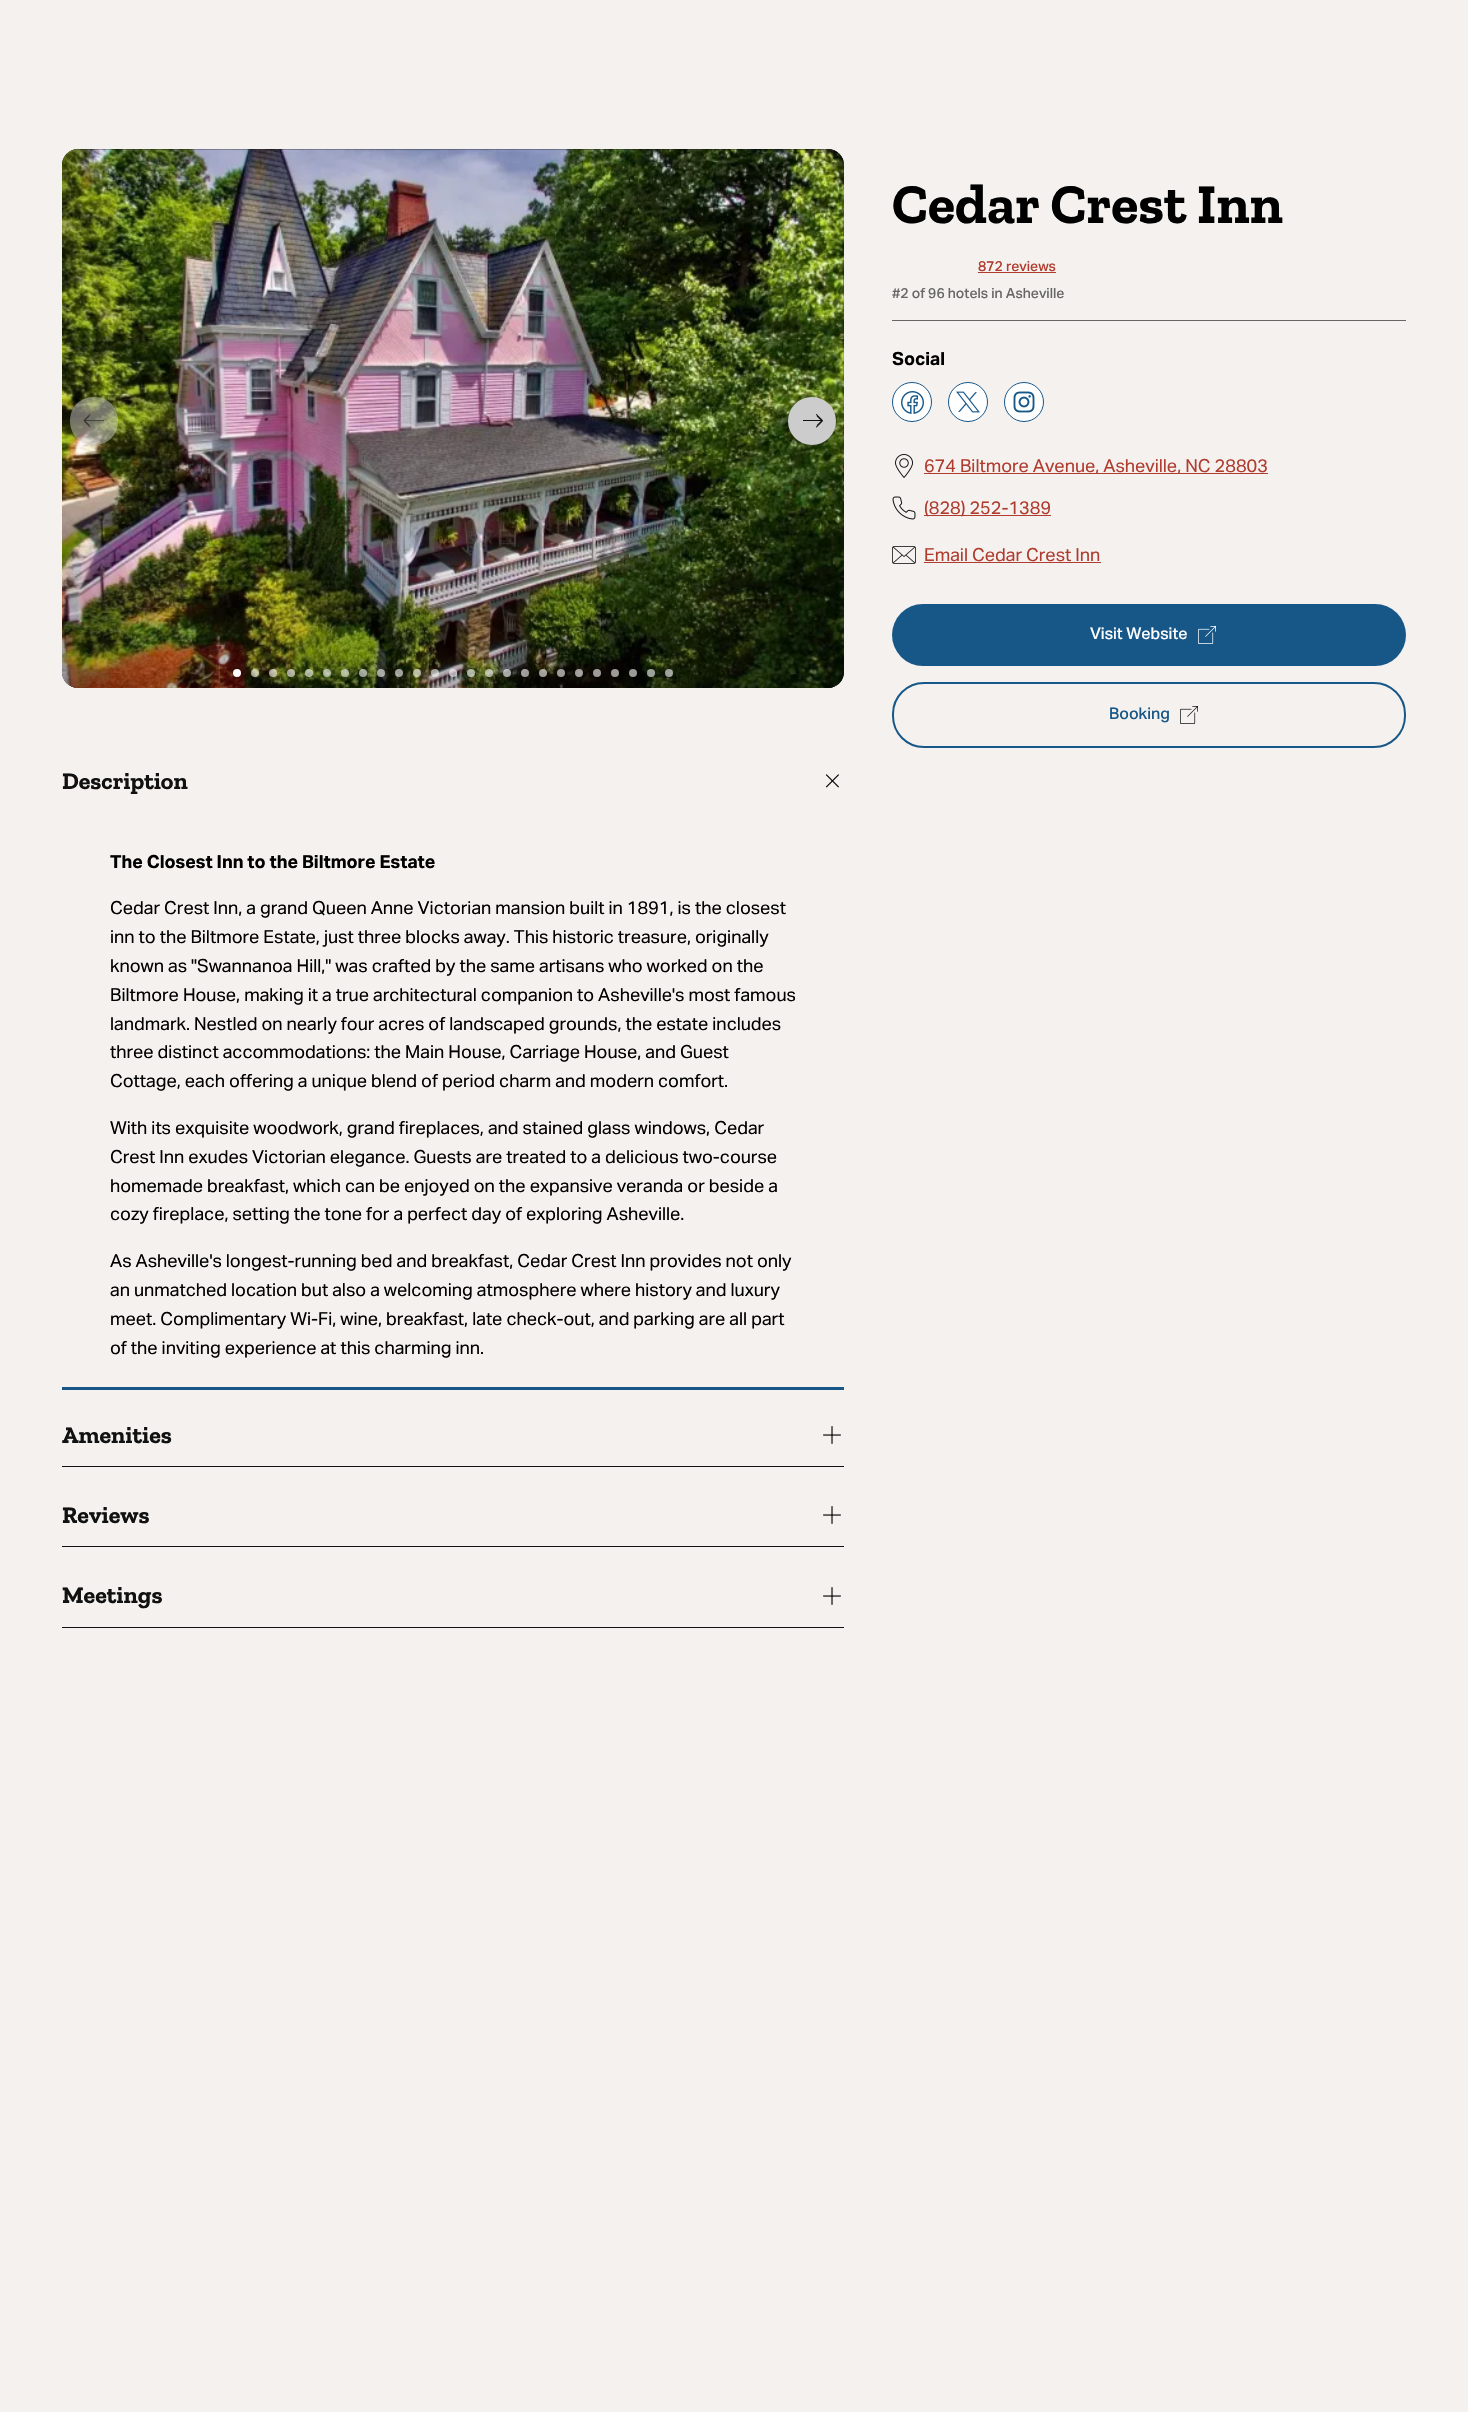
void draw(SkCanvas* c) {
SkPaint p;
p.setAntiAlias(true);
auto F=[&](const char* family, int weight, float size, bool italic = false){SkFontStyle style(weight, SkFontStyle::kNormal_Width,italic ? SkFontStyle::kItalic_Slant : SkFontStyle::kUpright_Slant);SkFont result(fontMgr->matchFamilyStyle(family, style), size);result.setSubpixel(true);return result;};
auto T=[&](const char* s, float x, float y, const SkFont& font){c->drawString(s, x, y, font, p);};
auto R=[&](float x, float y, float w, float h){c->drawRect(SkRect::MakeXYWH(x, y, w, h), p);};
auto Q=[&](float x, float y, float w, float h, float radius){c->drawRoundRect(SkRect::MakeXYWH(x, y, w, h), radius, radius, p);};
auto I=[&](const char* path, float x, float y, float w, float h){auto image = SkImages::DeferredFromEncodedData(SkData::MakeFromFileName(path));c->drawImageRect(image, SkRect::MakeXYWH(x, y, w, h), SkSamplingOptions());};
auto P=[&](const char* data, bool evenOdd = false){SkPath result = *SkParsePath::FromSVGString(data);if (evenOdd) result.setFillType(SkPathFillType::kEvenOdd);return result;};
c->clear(0xfff4f1ee);
p.setColor(0xff111111);
Q(62,149,782,539,16);
I("1.png",62,149,782,539);
{
const SkColor colors[] = {0x4d000000,0x00000000};
const float stops[] = {0,.3};
const SkPoint ends[] = {{453,688}, {453,149}};
p.setShader(SkGradientShader::MakeLinear(ends, colors, stops, 2, SkTileMode::kClamp));
p.setAlpha(255);
}
Q(62,149,782,539,16);
p.setShader(nullptr);
p.setColor(0x80cccccc);
c->drawPath(P("M94 445c-32 0-32-48 0-48c32 0 32 48 0 48z"),p);
I("2.png",83,414,21,14);
p.setColor(0xffcccccc);
c->drawCircle(812,421,24,p);
I("3.png",803,414,20,14);
p.setColor(0xffffffff);
c->drawCircle(237,673,4,p);
p.setColor(0x99ffffff);
c->drawCircle(255,673,4,p);
c->drawCircle(273,673,4,p);
c->drawCircle(291,673,4,p);
c->drawCircle(309,673,4,p);
c->drawCircle(327,673,4,p);
c->drawCircle(345,673,4,p);
c->drawCircle(363,673,4,p);
c->drawCircle(381,673,4,p);
c->drawCircle(399,673,4,p);
c->drawCircle(417,673,4,p);
c->drawCircle(435,673,4,p);
c->drawCircle(453,673,4,p);
c->drawCircle(471,673,4,p);
c->drawCircle(489,673,4,p);
c->drawCircle(507,673,4,p);
c->drawCircle(525,673,4,p);
c->drawCircle(543,673,4,p);
c->drawCircle(561,673,4,p);
c->drawCircle(579,673,4,p);
c->drawCircle(597,673,4,p);
c->drawCircle(615,673,4,p);
c->drawCircle(633,673,4,p);
c->drawCircle(651,673,4,p);
c->drawCircle(669,673,4,p);
p.setColor(0xff666666);
R(892,320,514,1);
auto f1 = F("Zilla Slab",700,56);
p.setColor(0xff000000);
T("Cedar Crest Inn",892,223,f1);
auto f2 = F("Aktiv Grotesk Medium",500,14);
p.setColor(0xffb03c2f);
T("872 reviews",978,271,f2);
R(978,272,78,1);
p.setColor(0xff666666);
T("#2 of 96 hotels in Asheville",892,298,f2);
auto f3 = F("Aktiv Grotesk",700,18);
p.setColor(0xff000000);
T("Social",892,365,f3);
p.setColor(0xffffffff);
c->drawCircle(912,402,19.5,p);
p.setStroke(true);
p.setStrokeWidth(1);
p.setColor(0xff165788);
c->drawCircle(912,402,19.5,p);
I("4.png",901,391,23,23);
p.setStroke(false);
p.setColor(0xffffffff);
c->drawCircle(968,402,19.5,p);
p.setStroke(true);
p.setColor(0xff165788);
c->drawCircle(968,402,19.5,p);
I("5.png",956,391,24,22);
p.setStroke(false);
p.setColor(0xffffffff);
c->drawCircle(1024,402,19.5,p);
p.setStroke(true);
p.setColor(0xff165788);
c->drawCircle(1024,402,19.5,p);
I("6.png",1013,391,22,22);
I("7.png",895,454,18,24);
p.setStroke(false);
p.setColor(0xffb03c2f);
R(924,473,344,1);
auto f4 = F("Aktiv Grotesk",400,18);
T("674 Biltmore Avenue, Asheville, NC 28803",924,472,f4);
I("8.png",892,496,24,24);
R(924,515,127,1);
T("(828) 252-1389",924,514,f4);
I("9.png",892,546,24,18);
T("Email Cedar Crest Inn",924,561,f4);
R(924,562,177,1);
p.setColor(0xff165788);
Q(892,604,514,62,31);
auto f5 = F("Aktiv Grotesk Medium",500,16);
p.setColor(0xffffffff);
T("Visit Website",1090,639,f5);
I("10.png",1198,626,18,18);
p.setStroke(true);
p.setStrokeWidth(2);
p.setColor(0xff165788);
c->drawRoundRect(SkRect::MakeXYWH(893,683,512,64),31,31,p);
p.setStroke(false);
T("Booking",1109,719,f5);
I("11.png",1180,706,18,18);
R(62,1387,782,3);
auto f6 = F("Zilla Slab",700,24);
p.setColor(0xff111111);
T("Description",62,789,f6);
I("12.png",826,774,13,14);
p.setColor(0xff000000);
T("The Closest Inn to the Biltmore Estate",110,868,f3);
T("Cedar Crest Inn, a grand Queen Anne Victorian mansion built in 1891, is the closest",110,914,f4);
T("inn to the Biltmore Estate, just three blocks away. This historic treasure, originally",110,943,f4);
T("known as \"Swannanoa Hill,\" was crafted by the same artisans who worked on the",110,972,f4);
T("Biltmore House, making it a true architectural companion to Asheville's most famous",110,1001,f4);
T("landmark. Nestled on nearly four acres of landscaped grounds, the estate includes",110,1030,f4);
T("three distinct accommodations: the Main House, Carriage House, and Guest",110,1058,f4);
T("Cottage, each offering a unique blend of period charm and modern comfort.",110,1087,f4);
T("With its exquisite woodwork, grand fireplaces, and stained glass windows, Cedar",110,1134,f4);
T("Crest Inn exudes Victorian elegance. Guests are treated to a delicious two-course",110,1163,f4);
T("homemade breakfast, which can be enjoyed on the expansive veranda or beside a",110,1192,f4);
T("cozy fireplace, setting the tone for a perfect day of exploring Asheville.",110,1220,f4);
T("As Asheville's longest-running bed and breakfast, Cedar Crest Inn provides not only",110,1267,f4);
T("an unmatched location but also a welcoming atmosphere where history and luxury",110,1296,f4);
T("meet. Complimentary Wi-Fi, wine, breakfast, late check-out, and parking are all part",110,1325,f4);
T("of the inviting experience at this charming inn.",110,1354,f4);
p.setColor(0xff111111);
T("Amenities",62,1443,f6);
I("13.png",823,1426,18,18);
R(62,1466,782,1);
T("Reviews",62,1523,f6);
I("13.png",823,1506,18,18);
R(62,1546,782,1);
T("Meetings",62,1603,f6);
I("13.png",823,1587,18,18);
R(62,1627,782,1);
}
